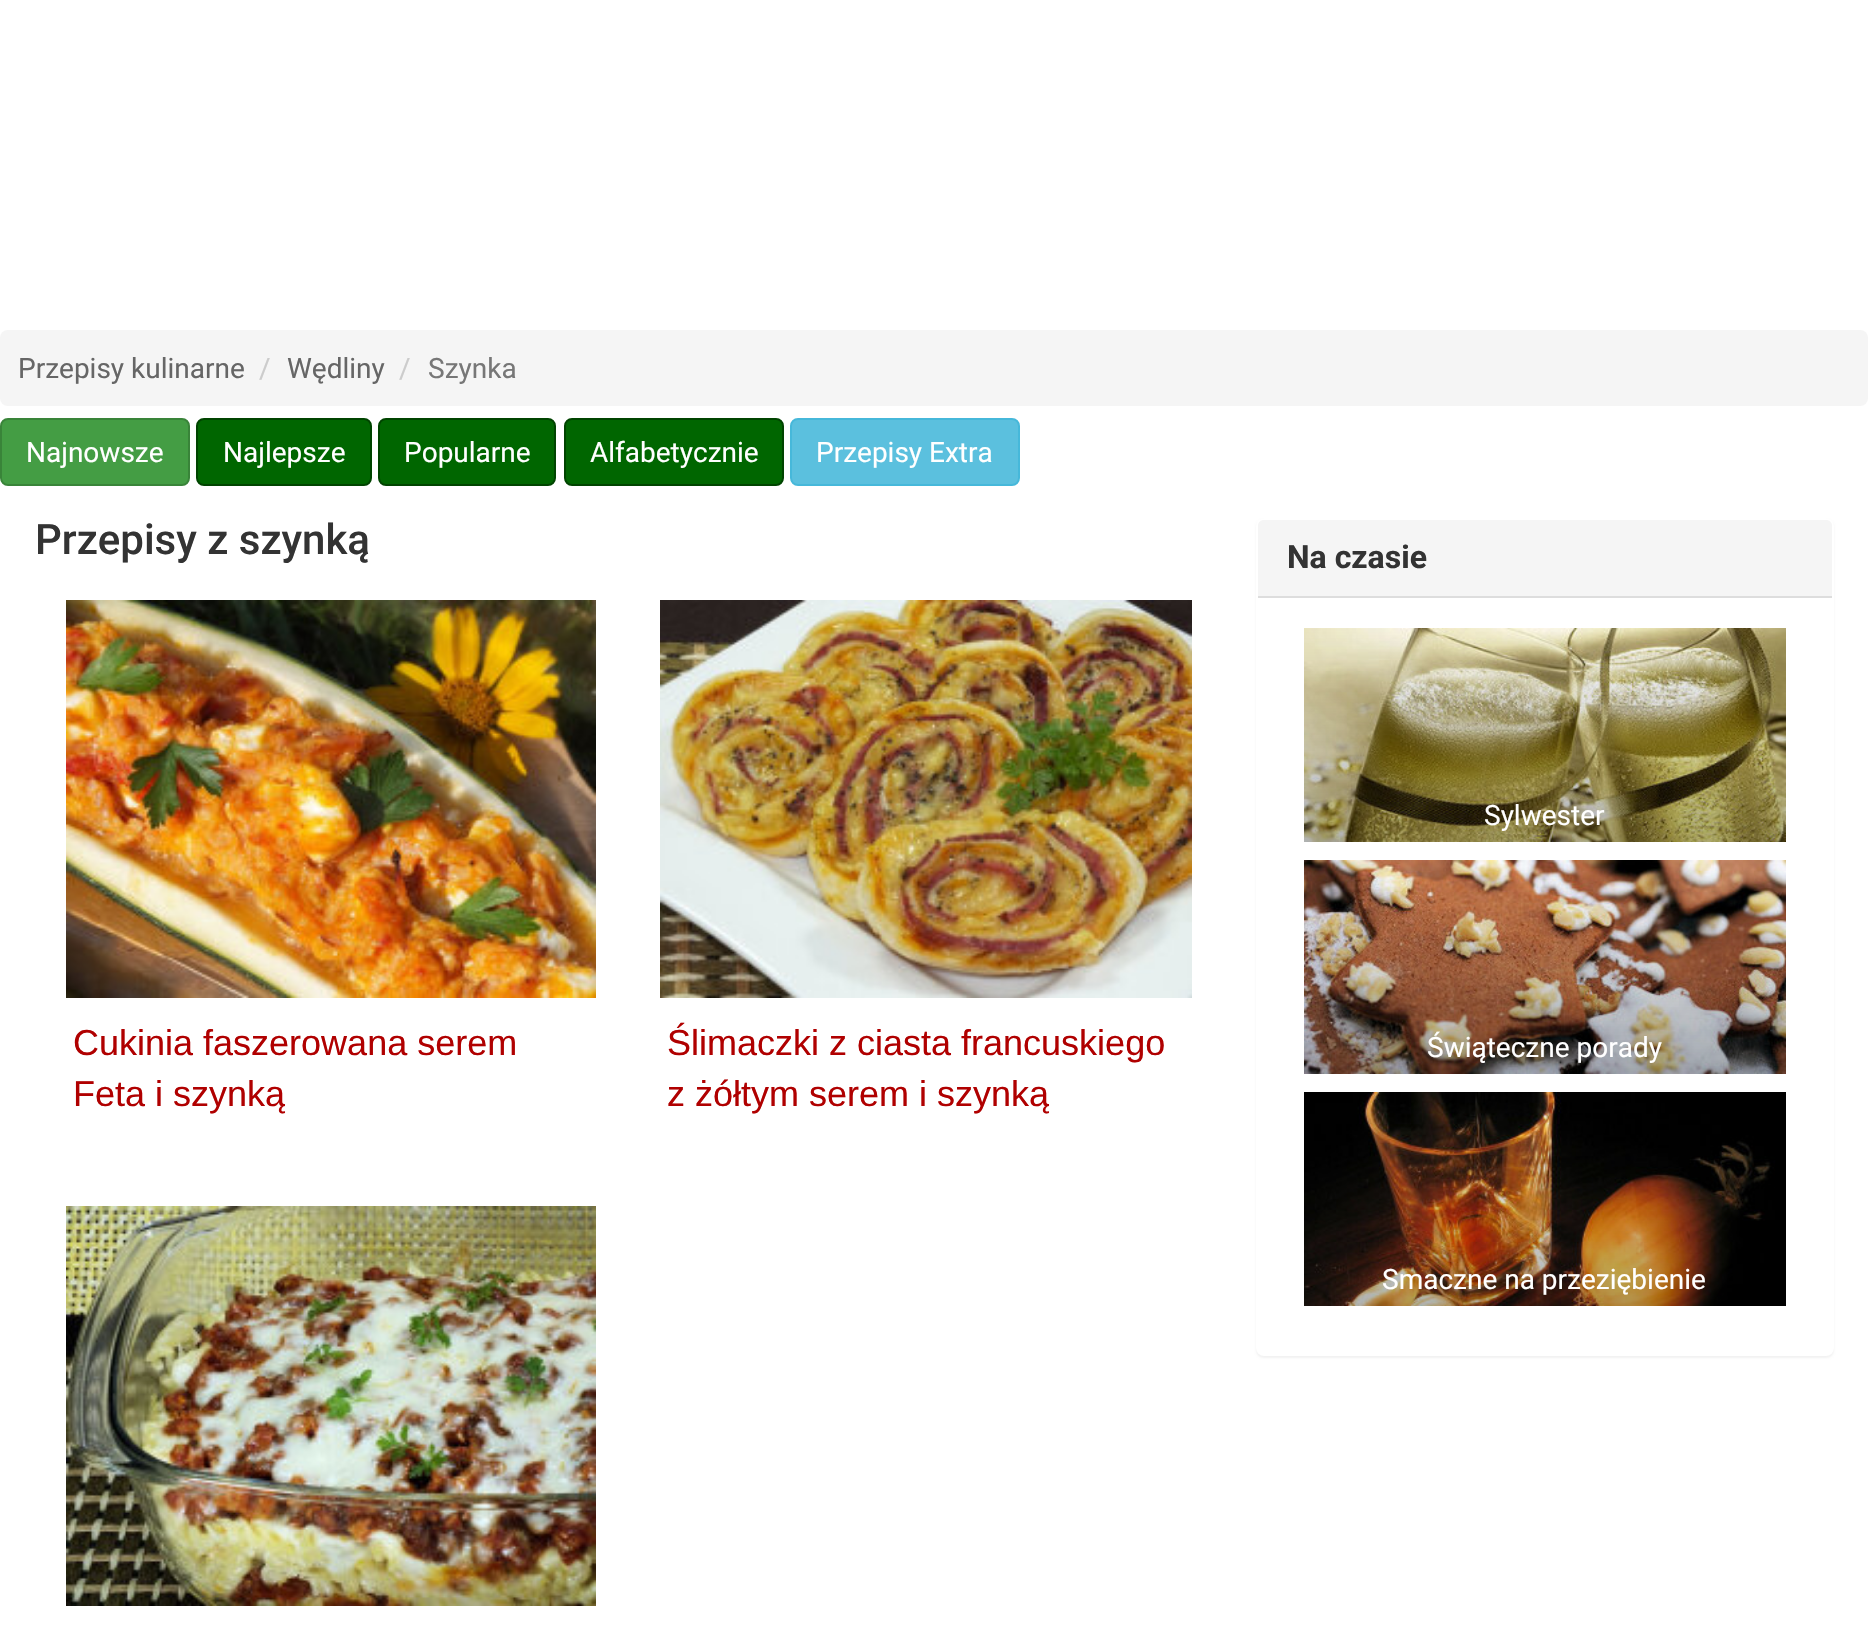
void draw(SkCanvas* c) {
SkPaint p;
p.setAntiAlias(true);
auto F=[&](const char* family, int weight, float size, bool italic = false){SkFontStyle style(weight, SkFontStyle::kNormal_Width,italic ? SkFontStyle::kItalic_Slant : SkFontStyle::kUpright_Slant);SkFont result(fontMgr->matchFamilyStyle(family, style), size);result.setSubpixel(true);return result;};
auto T=[&](const char* s, float x, float y, const SkFont& font){c->drawString(s, x, y, font, p);};
auto R=[&](float x, float y, float w, float h){c->drawRect(SkRect::MakeXYWH(x, y, w, h), p);};
auto Q=[&](float x, float y, float w, float h, float radius){c->drawRoundRect(SkRect::MakeXYWH(x, y, w, h), radius, radius, p);};
auto I=[&](const char* path, float x, float y, float w, float h){auto image = SkImages::DeferredFromEncodedData(SkData::MakeFromFileName(path));c->drawImageRect(image, SkRect::MakeXYWH(x, y, w, h), SkSamplingOptions());};
auto P=[&](const char* data, bool evenOdd = false){SkPath result = *SkParsePath::FromSVGString(data);if (evenOdd) result.setFillType(SkPathFillType::kEvenOdd);return result;};
c->clear(0xffffffff);
p.setColor(0xfff5f5f5);
Q(0,330,1868,76,8);
auto f1 = F("Roboto",400,28);
p.setColor(0xff666666);
T("Przepisy kulinarne",18,378,f1);
p.setColor(0xffcccccc);
T("/",259,378,f1);
p.setColor(0xff666666);
T("Wędliny",287,378,f1);
p.setColor(0xffcccccc);
T("/",399,378,f1);
p.setColor(0xff777777);
T("Szynka",428,378,f1);
p.setColor(0xff449d44);
c->drawRoundRect(SkRect::MakeXYWH(1,419,188,66),7,7,p);
p.setStroke(true);
p.setStrokeWidth(2);
p.setColor(0xff398439);
c->drawRoundRect(SkRect::MakeXYWH(1,419,188,66),7,7,p);
p.setStroke(false);
p.setColor(0xffffffff);
T("Najnowsze",26,462,f1);
p.setColor(0xff006600);
c->drawRoundRect(SkRect::MakeXYWH(197,419,174,66),7,7,p);
p.setStroke(true);
p.setColor(0xff004400);
c->drawRoundRect(SkRect::MakeXYWH(197,419,174,66),7,7,p);
p.setStroke(false);
p.setColor(0xffffffff);
T("Najlepsze",223,462,f1);
p.setColor(0xff006600);
c->drawRoundRect(SkRect::MakeXYWH(379,419,176,66),7,7,p);
p.setStroke(true);
p.setColor(0xff004400);
c->drawRoundRect(SkRect::MakeXYWH(379,419,176,66),7,7,p);
p.setStroke(false);
p.setColor(0xffffffff);
T("Popularne",404,462,f1);
p.setColor(0xff006600);
c->drawRoundRect(SkRect::MakeXYWH(565,419,218,66),7,7,p);
p.setStroke(true);
p.setColor(0xff004400);
c->drawRoundRect(SkRect::MakeXYWH(565,419,218,66),7,7,p);
p.setStroke(false);
p.setColor(0xffffffff);
T("Alfabetycznie",590,462,f1);
p.setColor(0xff5bc0de);
c->drawRoundRect(SkRect::MakeXYWH(791,419,228,66),7,7,p);
p.setStroke(true);
p.setColor(0xff46b8da);
c->drawRoundRect(SkRect::MakeXYWH(791,419,228,66),7,7,p);
p.setStroke(false);
p.setColor(0xffffffff);
T("Przepisy Extra",816,462,f1);
auto f2 = F("Roboto",500,42);
p.setColor(0xff333333);
T("Przepisy z szynką",35,554,f2);
I("1.png",66,600,530,398);
auto f3 = F("Liberation Sans",400,36);
p.setColor(0xffb00000);
T("Cukinia faszerowana serem",73,1055,f3);
T("Feta i szynką",73,1106,f3);
I("2.png",660,600,532,398);
T("Ślimaczki z ciasta francuskiego",667,1055,f3);
T("z żółtym serem i szynką",667,1106,f3);
I("3.png",66,1206,530,400);
p.setColor(0x0d000000);
p.setMaskFilter(SkMaskFilter::MakeBlur(kNormal_SkBlurStyle, 1));
c->drawRoundRect(SkRect::MakeXYWH(1256,520,578,838),8,8,p);
p.setMaskFilter(nullptr);
p.setColor(0xffffffff);
Q(1256,518,578,838,8);
p.setColor(0xfff5f5f5);
c->drawPath(P("M1264 520h562c3.5 0 6 2.5 6 6v72h-574v-72c0-3.5 2.5-6 6-6z"),p);
p.setColor(0xffdddddd);
R(1258,596,574,2);
auto f4 = F("Roboto",700,32);
p.setColor(0xff333333);
T("Na czasie",1287,568,f4);
I("4.png",1304,628,482,214);
p.setColor(0xffffffff);
T("Sylwester",1484,825,f1);
I("5.png",1304,860,482,214);
T("Świąteczne porady",1427,1057,f1);
I("6.png",1304,1092,482,214);
T("Smaczne na przeziębienie",1382,1289,f1);
}
